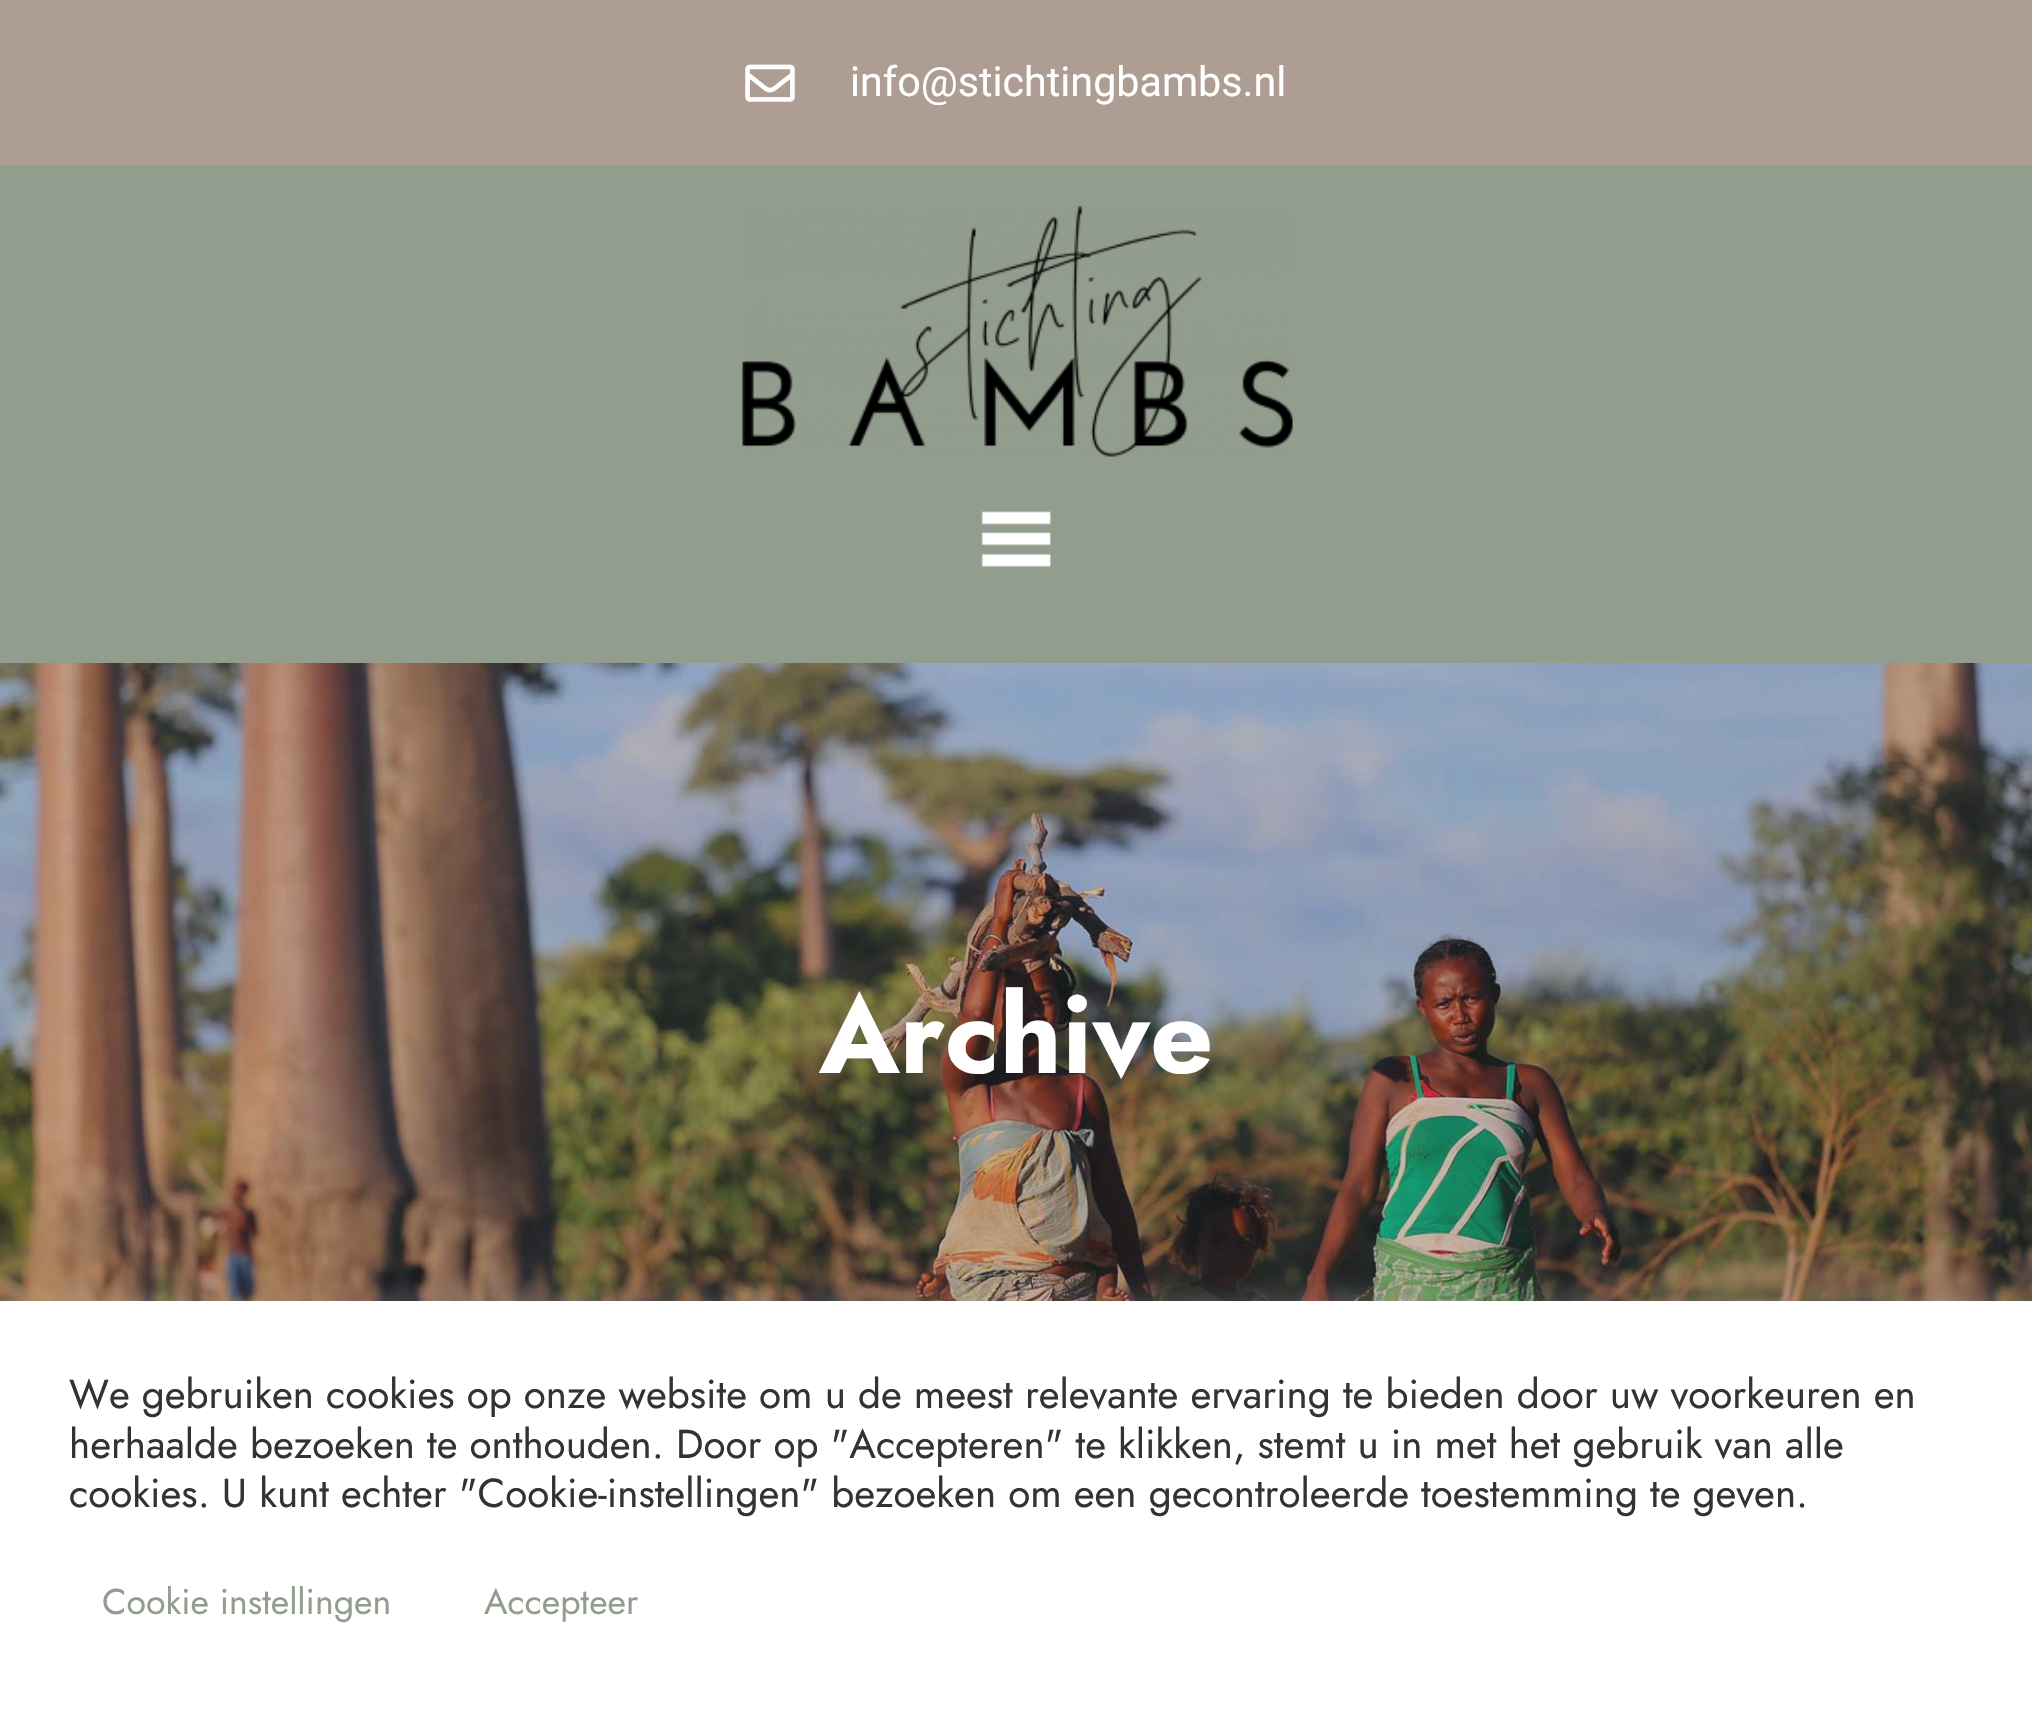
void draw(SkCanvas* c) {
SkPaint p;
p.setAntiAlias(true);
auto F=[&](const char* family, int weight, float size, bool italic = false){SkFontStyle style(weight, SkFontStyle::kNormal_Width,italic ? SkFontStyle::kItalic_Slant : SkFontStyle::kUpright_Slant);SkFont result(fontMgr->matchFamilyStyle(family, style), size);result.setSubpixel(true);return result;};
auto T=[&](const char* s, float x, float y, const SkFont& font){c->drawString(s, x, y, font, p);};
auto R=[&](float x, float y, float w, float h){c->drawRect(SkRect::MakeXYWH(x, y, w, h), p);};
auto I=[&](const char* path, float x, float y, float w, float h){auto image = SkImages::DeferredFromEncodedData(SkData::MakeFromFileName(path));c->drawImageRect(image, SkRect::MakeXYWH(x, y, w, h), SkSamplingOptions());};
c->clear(0xffffffff);
p.setColor(0xffae9d92);
R(0,0,2032,165);
I("1.png",745,64,50,38);
auto f1 = F("Roboto",400,41.25);
p.setColor(0xffffffff);
T("info@stichtingbambs.nl",850,96,f1);
p.setColor(0xff929d8e);
R(0,165,2032,498);
I("2.png",742,206,551,251);
I("3.png",981,511,70,56);
I("4.png",0,663,2032,638);
auto f2 = F("Jost",700,110);
p.setColor(0xffffffff);
T("Archive",819,1073,f2);
p.setColor(0x4dacabab);
p.setMaskFilter(SkMaskFilter::MakeBlur(kNormal_SkBlurStyle, 14));
c->drawRect(SkRect::MakeXYWH(0,1298,2032,426),p);
p.setMaskFilter(nullptr);
p.setColor(0xffffffff);
R(0,1301,2032,426);
auto f3 = F("Jost",400,40.35);
p.setColor(0xff333333);
T("We gebruiken cookies op onze website om u de meest relevante ervaring te bieden door uw voorkeuren en",69,1408,f3);
T("herhaalde bezoeken te onthouden. Door op \"Accepteren\" te klikken, stemt u in met het gebruik van alle",69,1458,f3);
T("cookies. U kunt echter \"Cookie-instellingen\" bezoeken om een gecontroleerde toestemming te geven.",69,1507,f3);
auto f4 = F("Jost",400,35.75);
p.setColor(0xff929d8e);
T("Cookie instellingen",102,1614,f4);
T("Accepteer",484,1614,f4);
}
